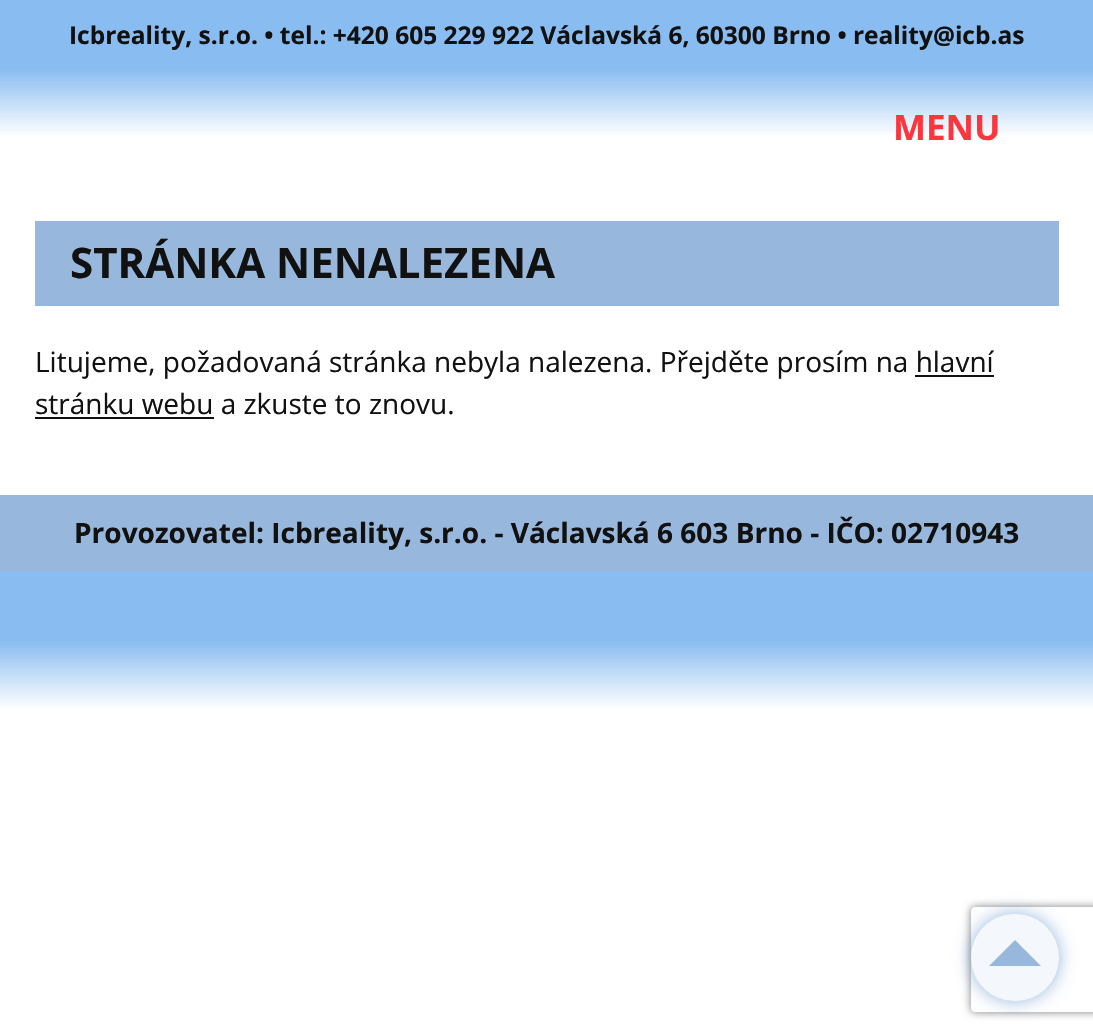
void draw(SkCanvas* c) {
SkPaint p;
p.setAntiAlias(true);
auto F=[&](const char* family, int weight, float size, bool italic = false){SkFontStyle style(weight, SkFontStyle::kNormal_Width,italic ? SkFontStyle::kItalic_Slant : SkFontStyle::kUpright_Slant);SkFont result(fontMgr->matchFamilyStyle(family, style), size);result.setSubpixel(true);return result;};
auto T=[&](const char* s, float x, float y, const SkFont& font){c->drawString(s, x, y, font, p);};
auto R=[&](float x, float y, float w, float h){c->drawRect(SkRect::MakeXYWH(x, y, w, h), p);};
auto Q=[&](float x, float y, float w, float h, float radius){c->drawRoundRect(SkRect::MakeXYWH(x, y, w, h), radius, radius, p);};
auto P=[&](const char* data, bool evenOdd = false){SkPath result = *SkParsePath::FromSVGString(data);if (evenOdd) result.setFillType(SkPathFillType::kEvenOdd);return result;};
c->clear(0xffffffff);
{
const SkColor colors[] = {0xff89bcf1,0xffffffff};
const float stops[] = {.12,.24};
const SkPoint ends[] = {{547,0}, {547,572}};
p.setShader(SkGradientShader::MakeLinear(ends, colors, stops, 2, SkTileMode::kClamp));
p.setAlpha(255);
}
R(0,0,1093,136);
{
const SkColor colors[] = {0xff89bcf1,0xffffffff};
const float stops[] = {.12,.24};
const SkPoint ends[] = {{547,572}, {547,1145}};
p.setShader(SkGradientShader::MakeLinear(ends, colors, stops, 2, SkTileMode::kClamp));
p.setAlpha(255);
}
R(0,572,1093,136);
auto f1 = F("Open Sans",700,24.5);
p.setShader(nullptr);
p.setColor(0xff111111);
T("Icbreality, s.r.o. • tel.: +420 605 229 922 Václavská 6, 60300 Brno • reality@icb.as",69,44,f1);
auto f2 = F("Open Sans",700,35);
p.setColor(0xfffc363e);
T("MENU",893,140,f2);
p.setColor(0xff97b7dd);
R(35,221,1024,85);
auto f3 = F("Open Sans",700,42);
p.setColor(0xff111111);
T("STRÁNKA NENALEZENA",70,278,f3);
auto f4 = F("Open Sans",400,28);
T("Litujeme, požadovaná stránka nebyla nalezena. Přejděte prosím na hlavní",35,372,f4);
T("stránku webu a zkuste to znovu.",35,414,f4);
R(915,375,79,2);
R(35,417,179,2);
p.setColor(0xff97b7dd);
R(0,495,1093,77);
auto f5 = F("Open Sans",700,28);
p.setColor(0xff111111);
T("Provozovatel: Icbreality, s.r.o. - Václavská 6 603 Brno - IČO: 02710943",74,543,f5);
p.setColor(0xff97b7dd);
p.setMaskFilter(SkMaskFilter::MakeBlur(kNormal_SkBlurStyle, 9));
c->drawRoundRect(SkRect::MakeXYWH(971,914,88,87),43.5,43.5,p);
p.setMaskFilter(nullptr);
c->save();
c->clipPath(P("M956 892h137v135h-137zm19 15h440c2 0 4 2 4 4v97c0 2-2 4-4 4h-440c-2 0-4-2-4-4v-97c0-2 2-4 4-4z",true),true);
p.setColor(0xff808080);
p.setMaskFilter(SkMaskFilter::MakeBlur(kNormal_SkBlurStyle, 4.5));
c->drawRoundRect(SkRect::MakeXYWH(971,907,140,105),4,4,p);
p.setMaskFilter(nullptr);
c->restore();
p.setColor(0xfff4f8fc);
Q(971,914,88,87,43.5);
p.setColor(0xff97b7dd);
c->drawPath(P("M1041 966h-52l26-26z"),p);
}
